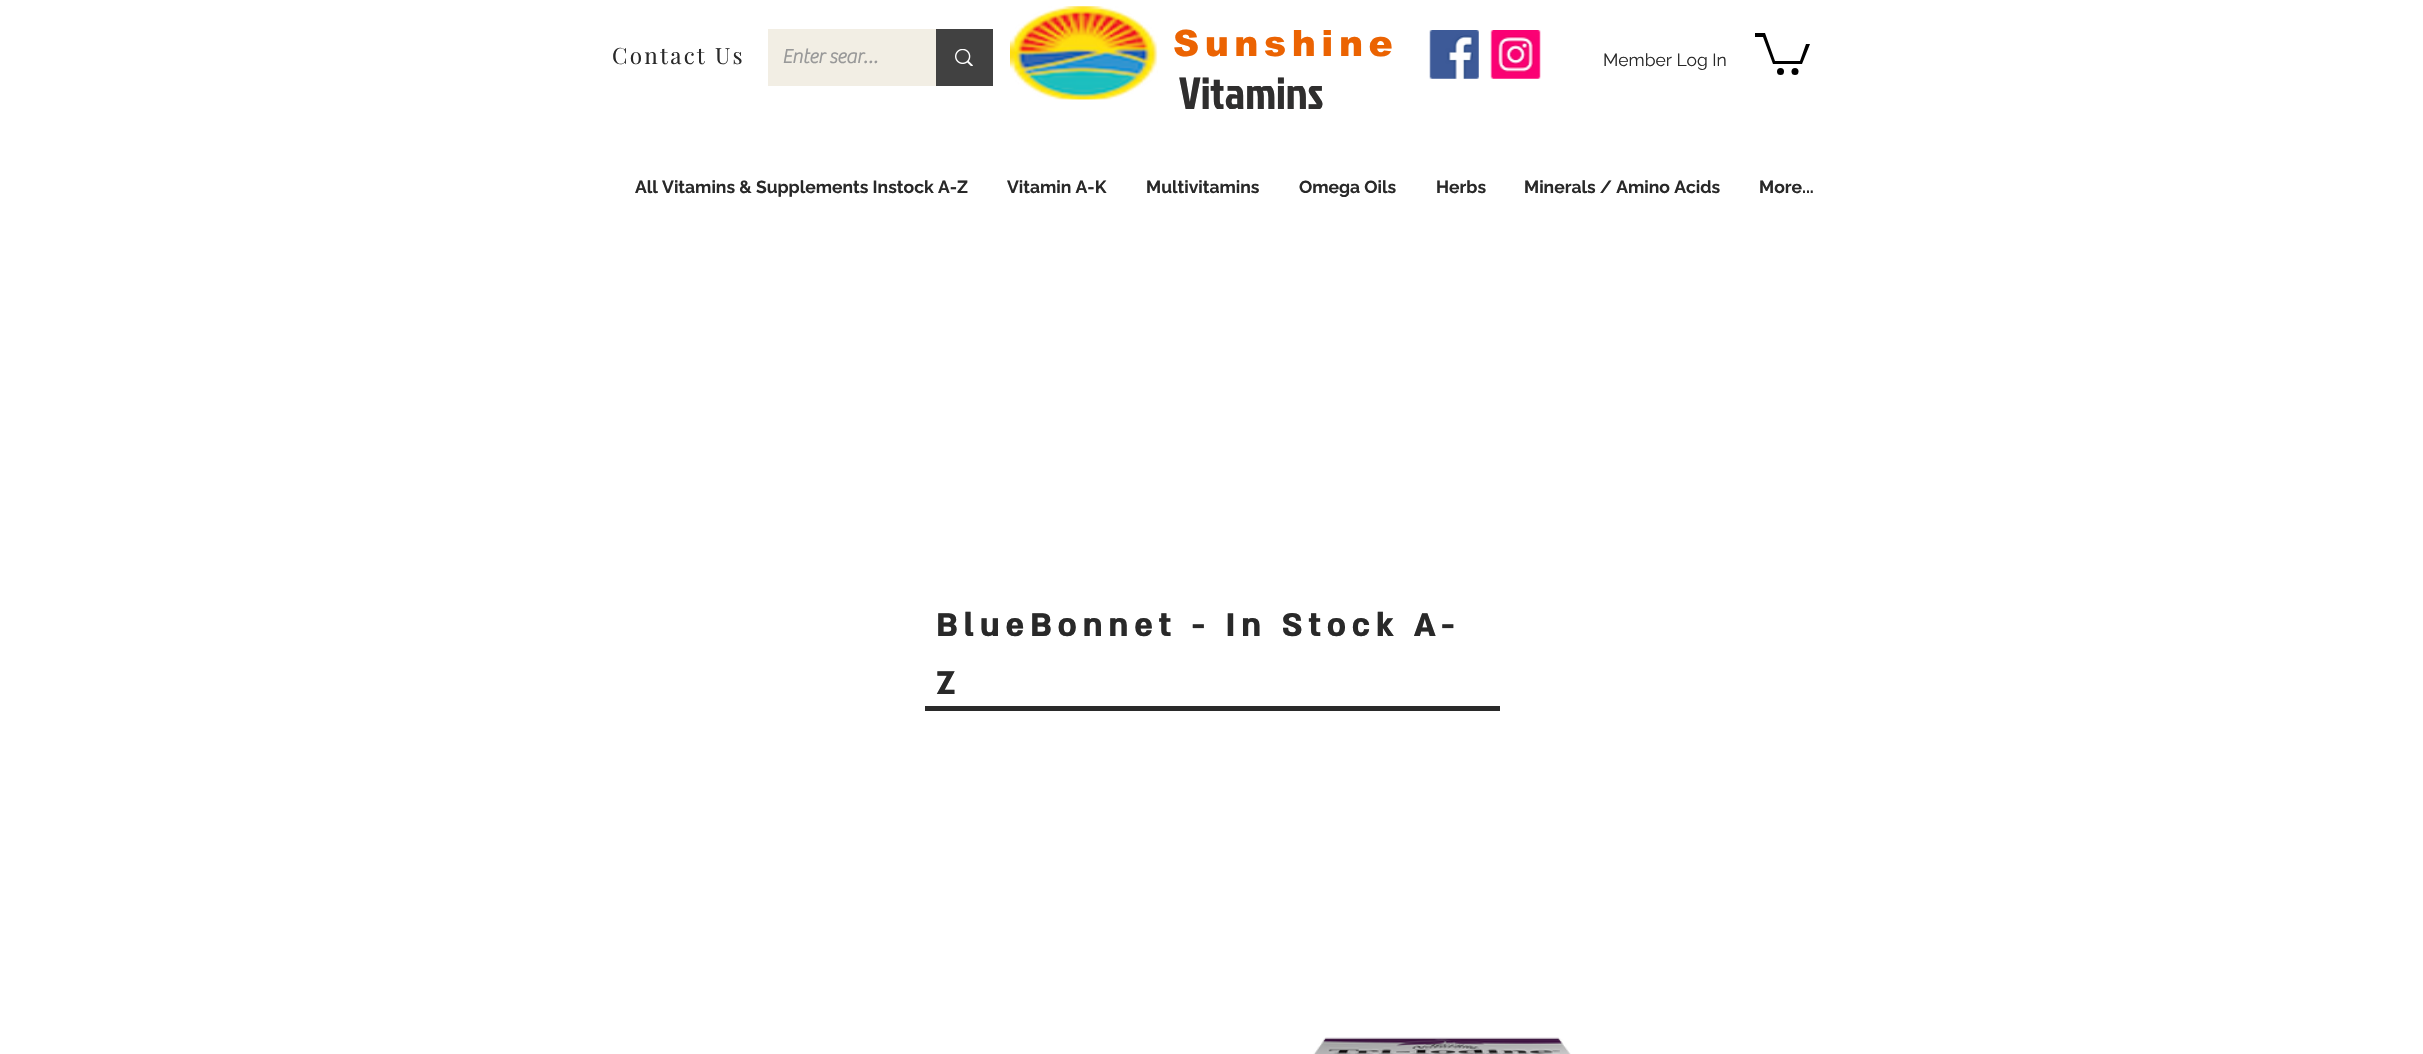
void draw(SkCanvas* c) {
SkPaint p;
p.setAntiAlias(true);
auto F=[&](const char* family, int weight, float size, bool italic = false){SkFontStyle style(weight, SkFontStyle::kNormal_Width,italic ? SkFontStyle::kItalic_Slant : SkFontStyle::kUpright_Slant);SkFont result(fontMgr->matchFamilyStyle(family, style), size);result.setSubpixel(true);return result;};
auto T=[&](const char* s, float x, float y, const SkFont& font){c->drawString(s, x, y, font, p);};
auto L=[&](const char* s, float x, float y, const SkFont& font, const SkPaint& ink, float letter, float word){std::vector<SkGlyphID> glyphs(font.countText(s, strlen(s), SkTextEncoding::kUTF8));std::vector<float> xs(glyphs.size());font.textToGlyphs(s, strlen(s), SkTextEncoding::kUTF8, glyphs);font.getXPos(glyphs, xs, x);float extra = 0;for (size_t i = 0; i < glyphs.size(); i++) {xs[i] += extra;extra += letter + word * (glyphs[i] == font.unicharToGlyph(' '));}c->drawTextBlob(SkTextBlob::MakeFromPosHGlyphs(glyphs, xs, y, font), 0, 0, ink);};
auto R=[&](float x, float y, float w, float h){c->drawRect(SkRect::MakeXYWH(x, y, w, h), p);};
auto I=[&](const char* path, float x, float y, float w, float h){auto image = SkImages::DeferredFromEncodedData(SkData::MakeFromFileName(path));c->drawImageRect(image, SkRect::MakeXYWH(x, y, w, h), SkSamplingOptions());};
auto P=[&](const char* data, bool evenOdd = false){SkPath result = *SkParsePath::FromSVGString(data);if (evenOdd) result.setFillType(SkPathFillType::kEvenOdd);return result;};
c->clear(0xffffffff);
auto f1 = F("Playfair Display",400,22.5);
p.setColor(0xff292929);
L("Contact Us",612,64,f1,p,2.25,0);
p.setColor(0xfff2eee4);
R(768,29,168,57);
auto f2 = F("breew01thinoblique",700,20);
p.setColor(0xff999999);
T("Enter sear…",782,63,f2);
p.setColor(0xff414141);
R(936,29,57,57);
I("1.png",955,49,18,17);
I("2.png",1010,6,148,94);
auto f3 = F("arial",900,36.25);
p.setColor(0xffeb6302);
L("Sunshine",1173,56,f3,p,5.5,0);
auto f4 = F("Jockey One",400,45);
p.setColor(0xff2f2e2e);
T("Vitamins",1179,109,f4);
I("3.png",1429,30,50,49);
I("4.png",1490,30,51,49);
auto f5 = F("Raleway",400,17.5);
p.setColor(0xff292929);
T("Member Log In",1603,66,f5);
p.setColor(0xff000000);
c->drawPath(P("M1810 44l-8 20h-29l-10-27h-8v-4h10l10 28h25l6-17"),p);
c->drawCircle(1795,71.5,3.5,p);
c->drawCircle(1780.5,71.5,3.5,p);
auto f6 = F("Raleway",700,17.5);
p.setColor(0xff292929);
T("All Vitamins & Supplements Instock A-Z",635,193,f6);
T("Vitamin A-K",1007,193,f6);
T("Multivitamins",1146,193,f6);
T("Omega Oils",1299,193,f6);
T("Herbs",1436,193,f6);
T("Minerals / Amino Acids",1524,193,f6);
T("More...",1759,193,f6);
auto f7 = F("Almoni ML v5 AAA",700,37.5);
L("BlueBonnet - In Stock A-",936,636,f7,p,5.6,0);
L("Z",936,694,f7,p,5.6,0);
p.setColor(0xff2a2a2a);
R(925,706,575,5);
I("5.png",1313,1037,258,17);
}
